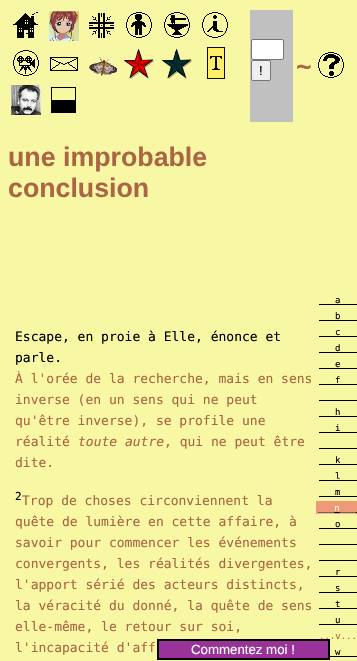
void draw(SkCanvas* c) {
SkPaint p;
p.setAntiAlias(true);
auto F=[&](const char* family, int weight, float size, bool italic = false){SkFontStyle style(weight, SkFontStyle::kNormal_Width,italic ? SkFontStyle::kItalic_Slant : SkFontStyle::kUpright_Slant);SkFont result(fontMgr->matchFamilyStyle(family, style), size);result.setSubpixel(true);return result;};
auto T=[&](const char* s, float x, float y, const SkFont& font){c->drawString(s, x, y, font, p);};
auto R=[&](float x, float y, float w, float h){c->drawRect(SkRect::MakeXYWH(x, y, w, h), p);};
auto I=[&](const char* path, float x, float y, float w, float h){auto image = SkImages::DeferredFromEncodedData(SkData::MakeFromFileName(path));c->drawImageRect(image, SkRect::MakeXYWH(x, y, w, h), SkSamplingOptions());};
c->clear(0xfff8f8a4);
I("1.png",13,12,25,26);
I("2.png",49,11,30,30);
I("3.png",89,13,25,25);
I("4.png",126,12,26,26);
I("5.png",164,12,26,26);
I("6.png",202,12,26,26);
I("7.png",13,50,26,26);
I("8.png",50,57,28,14);
I("9.png",89,57,28,19);
I("10.png",124,49,30,30);
I("11.png",162,49,30,30);
I("12.png",207,47,18,32);
I("13.png",11,85,30,30);
I("14.png",51,87,25,26);
p.setColor(0xffc0c0c0);
R(250,10,43,112);
p.setColor(0xffffffff);
c->drawRoundRect(SkRect::MakeXYWH(251.5,39.5,32,20),1.5,1.5,p);
p.setStroke(true);
p.setStrokeWidth(1);
p.setColor(0xff767676);
c->drawRoundRect(SkRect::MakeXYWH(251.5,39.5,32,20),1.5,1.5,p);
p.setStroke(false);
p.setColor(0xffefefef);
c->drawRoundRect(SkRect::MakeXYWH(251.5,60.5,19,20),1.5,1.5,p);
p.setStroke(true);
p.setColor(0xff767676);
c->drawRoundRect(SkRect::MakeXYWH(251.5,60.5,19,20),1.5,1.5,p);
auto f1 = F("Liberation Sans",400,13.25);
p.setStroke(false);
p.setColor(0xff000000);
T("!",259,75,f1);
auto f2 = F("DejaVu Sans Mono",700,26);
p.setColor(0xffaa6644);
T("~",296,75,f2);
I("15.png",318,52,26,26);
auto f3 = F("Liberation Sans",700,26.75);
T("une improbable",8,166,f3);
T("conclusion",8,197,f3);
auto f4 = F("DejaVu Sans Mono",400,13);
p.setColor(0xff000000);
T("Escape, en proie à Elle, énonce et",15,341,f4);
T("parle.",15,362,f4);
p.setColor(0xffaa6644);
T("À l'orée de la recherche, mais en sens",15,383,f4);
T("inverse (en un sens qui ne peut",15,404,f4);
T("qu'être inverse), se profile une",15,425,f4);
T("réalité",15,446,f4);
auto f5 = F("DejaVu Sans Mono",400,13,true);
T("toute autre",78,446,f5);
T(", qui ne peut être",164,446,f4);
T("dite.",15,467,f4);
auto f6 = F("DejaVu Sans Mono",400,11);
p.setColor(0xff000000);
T("2",15,500,f6);
p.setColor(0xffaa6644);
T("Trop de choses circonviennent la",22,505,f4);
T("quête de lumière en cette affaire, à",15,526,f4);
T("savoir pour commencer les événements",15,547,f4);
T("convergents, les réalités divergentes,",15,568,f4);
T("l'apport sérié des acteurs distincts,",15,589,f4);
T("la véracité du donné, la quête de sens",15,610,f4);
T("elle-même, le retour sur soi,",15,631,f4);
T("l'incapacité d'aff",15,652,f4);
auto f7 = F("DejaVu Sans Mono",400,9);
p.setColor(0xff000000);
T("a",335,303,f7);
R(319,304,38,1);
T("b",335,319,f7);
R(319,320,38,1);
T("c",335,335,f7);
R(319,336,38,1);
T("d",335,351,f7);
R(319,352,38,1);
T("e",335,367,f7);
R(319,368,38,1);
T("f",335,383,f7);
R(319,384,38,1);
T("h",335,415,f7);
R(319,400,38,1);
R(319,416,38,1);
T("i",335,431,f7);
R(319,432,38,1);
T("k",335,463,f7);
R(319,448,38,1);
R(319,464,38,1);
T("l",335,479,f7);
R(319,480,38,1);
T("m",335,495,f7);
R(319,496,38,1);
p.setColor(0xffee9977);
R(316,501,41,13);
p.setColor(0xff000000);
R(318,512,39,1);
p.setColor(0xfffffff0);
T("___n___",318,511,f7);
p.setColor(0xff000000);
T("o",335,527,f7);
R(319,528,38,1);
R(319,544,38,1);
T("r",335,575,f7);
R(319,560,38,1);
R(319,576,38,1);
T("s",335,591,f7);
R(319,592,38,1);
T("t",335,607,f7);
R(319,608,38,1);
T("u",335,623,f7);
R(319,624,38,1);
p.setColor(0xffaa6644);
T("...v...",319,639,f7);
p.setColor(0xff000000);
T("w",335,655,f7);
R(330,656,27,1);
p.setColor(0xff993399);
c->drawRect(SkRect::MakeXYWH(158,640,171,19),p);
p.setStroke(true);
p.setStrokeWidth(2);
p.setColor(0xff000000);
c->drawRect(SkRect::MakeXYWH(158,640,171,19),p);
p.setStroke(false);
p.setColor(0xffffffff);
T("Commentez moi !",191,654,f1);
}
